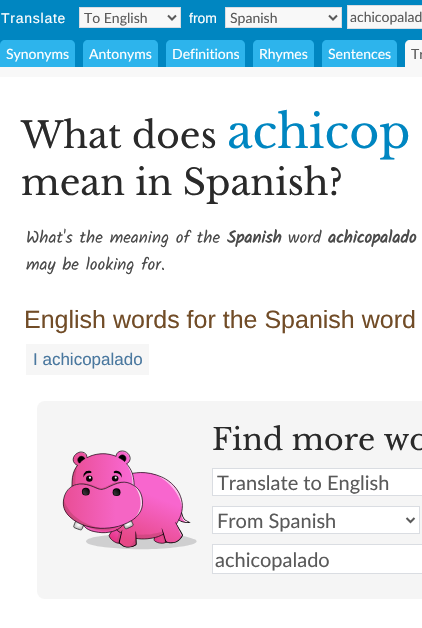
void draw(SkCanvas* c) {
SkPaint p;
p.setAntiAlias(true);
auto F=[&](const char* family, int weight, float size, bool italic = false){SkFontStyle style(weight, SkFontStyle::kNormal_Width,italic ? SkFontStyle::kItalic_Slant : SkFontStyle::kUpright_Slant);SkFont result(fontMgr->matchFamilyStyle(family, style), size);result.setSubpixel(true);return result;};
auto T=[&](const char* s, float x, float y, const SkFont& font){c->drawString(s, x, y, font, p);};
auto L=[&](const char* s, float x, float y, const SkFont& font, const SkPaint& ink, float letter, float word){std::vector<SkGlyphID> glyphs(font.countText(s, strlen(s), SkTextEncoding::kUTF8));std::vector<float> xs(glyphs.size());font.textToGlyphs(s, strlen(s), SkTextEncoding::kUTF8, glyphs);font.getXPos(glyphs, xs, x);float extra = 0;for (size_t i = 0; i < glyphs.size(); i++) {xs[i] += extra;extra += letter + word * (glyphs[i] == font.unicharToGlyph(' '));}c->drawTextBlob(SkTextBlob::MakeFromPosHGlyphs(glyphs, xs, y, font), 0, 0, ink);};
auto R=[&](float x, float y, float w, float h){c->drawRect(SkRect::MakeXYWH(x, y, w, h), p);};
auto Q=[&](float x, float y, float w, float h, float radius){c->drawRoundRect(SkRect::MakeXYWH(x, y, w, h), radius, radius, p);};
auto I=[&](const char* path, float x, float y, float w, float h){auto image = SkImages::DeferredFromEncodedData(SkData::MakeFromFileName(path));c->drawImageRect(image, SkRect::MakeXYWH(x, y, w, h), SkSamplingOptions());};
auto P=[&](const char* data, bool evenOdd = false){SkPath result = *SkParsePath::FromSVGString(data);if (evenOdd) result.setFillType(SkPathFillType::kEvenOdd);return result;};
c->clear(0xfff8f8f8);
p.setColor(0xff0086c1);
R(0,0,422,67);
auto f1 = F("Liberation Sans",400,14);
p.setColor(0xffffffff);
L("Translate",1,23,f1,p,.75,0);
p.setColor(0xfff8f8f8);
c->drawRect(SkRect::MakeXYWH(79.5,7.5,101,20),p);
p.setStroke(true);
p.setStrokeWidth(1);
p.setColor(0xffdadde2);
c->drawRect(SkRect::MakeXYWH(79.5,7.5,101,20),p);
p.setStrokeWidth(2);
p.setColor(0xff5a5a5a);
c->drawPath(P("M168 15.5l4 4l4-4"),p);
auto f2 = F("Lato",400,14);
p.setStroke(false);
T("To English",84,23,f2);
p.setColor(0xffffffff);
T("from",189,23,f1);
p.setColor(0xfff8f8f8);
c->drawRect(SkRect::MakeXYWH(225.5,7.5,116,20),p);
p.setStroke(true);
p.setStrokeWidth(1);
p.setColor(0xffdadde2);
c->drawRect(SkRect::MakeXYWH(225.5,7.5,116,20),p);
p.setStrokeWidth(2);
p.setColor(0xff5a5a5a);
c->drawPath(P("M329 15.5l4 4l4-4"),p);
p.setStroke(false);
T("Spanish",230,23,f2);
p.setColor(0xfff8f8f8);
c->drawRect(SkRect::MakeXYWH(347.5,5.5,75,23),p);
p.setStroke(true);
p.setStrokeWidth(1);
p.setColor(0xffdadde2);
c->drawRect(SkRect::MakeXYWH(347.5,5.5,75,23),p);
p.setStroke(false);
p.setColor(0xff5a5a5a);
T("achicopalad",350,22,f2);
p.setColor(0xff2db4ec);
c->drawPath(P("M5 40h65c3 0 5 2 5 5v22h-75v-22c0-3 2-5 5-5z"),p);
p.setColor(0xffffffff);
T("Synonyms",6,59,f2);
p.setColor(0xff2db4ec);
c->drawPath(P("M88 40h65c3 0 5 2 5 5v22h-75v-22c0-3 2-5 5-5z"),p);
p.setColor(0xffffffff);
T("Antonyms",89,59,f2);
p.setColor(0xff2db4ec);
c->drawPath(P("M171 40h69c3 0 5 2 5 5v22h-79v-22c0-3 2-5 5-5z"),p);
p.setColor(0xffffffff);
T("Definitions",172,59,f2);
p.setColor(0xff2db4ec);
c->drawPath(P("M258 40h51c3 0 5 2 5 5v22h-61v-22c0-3 2-5 5-5z"),p);
p.setColor(0xffffffff);
T("Rhymes",259,59,f2);
p.setColor(0xff2db4ec);
c->drawPath(P("M327 40h65c3 0 5 2 5 5v22h-75v-22c0-3 2-5 5-5z"),p);
p.setColor(0xffffffff);
T("Sentences",328,59,f2);
p.setColor(0xfff8f8f8);
c->drawPath(P("M410 40h12c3 0 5 2 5 5v22h-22v-22c0-3 2-5 5-5z"),p);
p.setColor(0xff5a5a5a);
T("Tr",411,59,f2);
p.setColor(0xffffffff);
R(0,77,422,551);
auto f3 = F("Libre Baskerville",400,36);
p.setColor(0xff2a2a2a);
T("What does",21,148,f3);
auto f4 = F("Libre Baskerville",400,46);
p.setColor(0xff0086c1);
T("achicop",227,148,f4);
p.setColor(0xff2a2a2a);
T("mean in Spanish?",21,195,f3);
auto f5 = F("Kalam",400,17);
p.setColor(0xff4a4a4a);
T("What's the meaning of the",26,243,f5);
auto f6 = F("Kalam",700,17);
T("Spanish",227,243,f6);
T("word",288,243,f5);
T("achicopalado",328,243,f6);
T("may be looking for.",26,270,f5);
auto f7 = F("Liberation Sans",400,25);
p.setColor(0xff714c27);
T("English words for the Spanish word",24,328,f7);
p.setColor(0xfff6f6f6);
R(26,344,123,31);
auto f8 = F("Liberation Sans",400,17);
p.setColor(0xff4a789f);
T("I achicopalado",33,365,f8);
p.setColor(0xfff5f5f5);
Q(37,401,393,198,8);
auto f9 = F("Libre Baskerville",400,30);
p.setColor(0xff2a2a2a);
T("Find more wo",212,450,f9);
I("1.png",62,450,135,100);
p.setColor(0xffffffff);
c->drawRect(SkRect::MakeXYWH(212.5,468.5,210,27),p);
p.setStroke(true);
p.setColor(0xffdadde2);
c->drawRect(SkRect::MakeXYWH(212.5,468.5,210,27),p);
auto f10 = F("Lato",400,20);
p.setStroke(false);
p.setColor(0xff5a5a5a);
T("Translate to English",217,490,f10);
p.setColor(0xffffffff);
c->drawRect(SkRect::MakeXYWH(212.5,506.5,207,27),p);
p.setStroke(true);
p.setColor(0xffdadde2);
c->drawRect(SkRect::MakeXYWH(212.5,506.5,207,27),p);
p.setStrokeWidth(2);
p.setColor(0xff5a5a5a);
c->drawPath(P("M406.5 518l4 4l4-4"),p);
p.setStroke(false);
T("From Spanish",217,528,f10);
p.setColor(0xffffffff);
c->drawRect(SkRect::MakeXYWH(212.5,544.5,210,29),p);
p.setStroke(true);
p.setStrokeWidth(1);
p.setColor(0xffdadde2);
c->drawRect(SkRect::MakeXYWH(212.5,544.5,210,29),p);
p.setStroke(false);
p.setColor(0xff5a5a5a);
T("achicopalado",215,567,f10);
}
